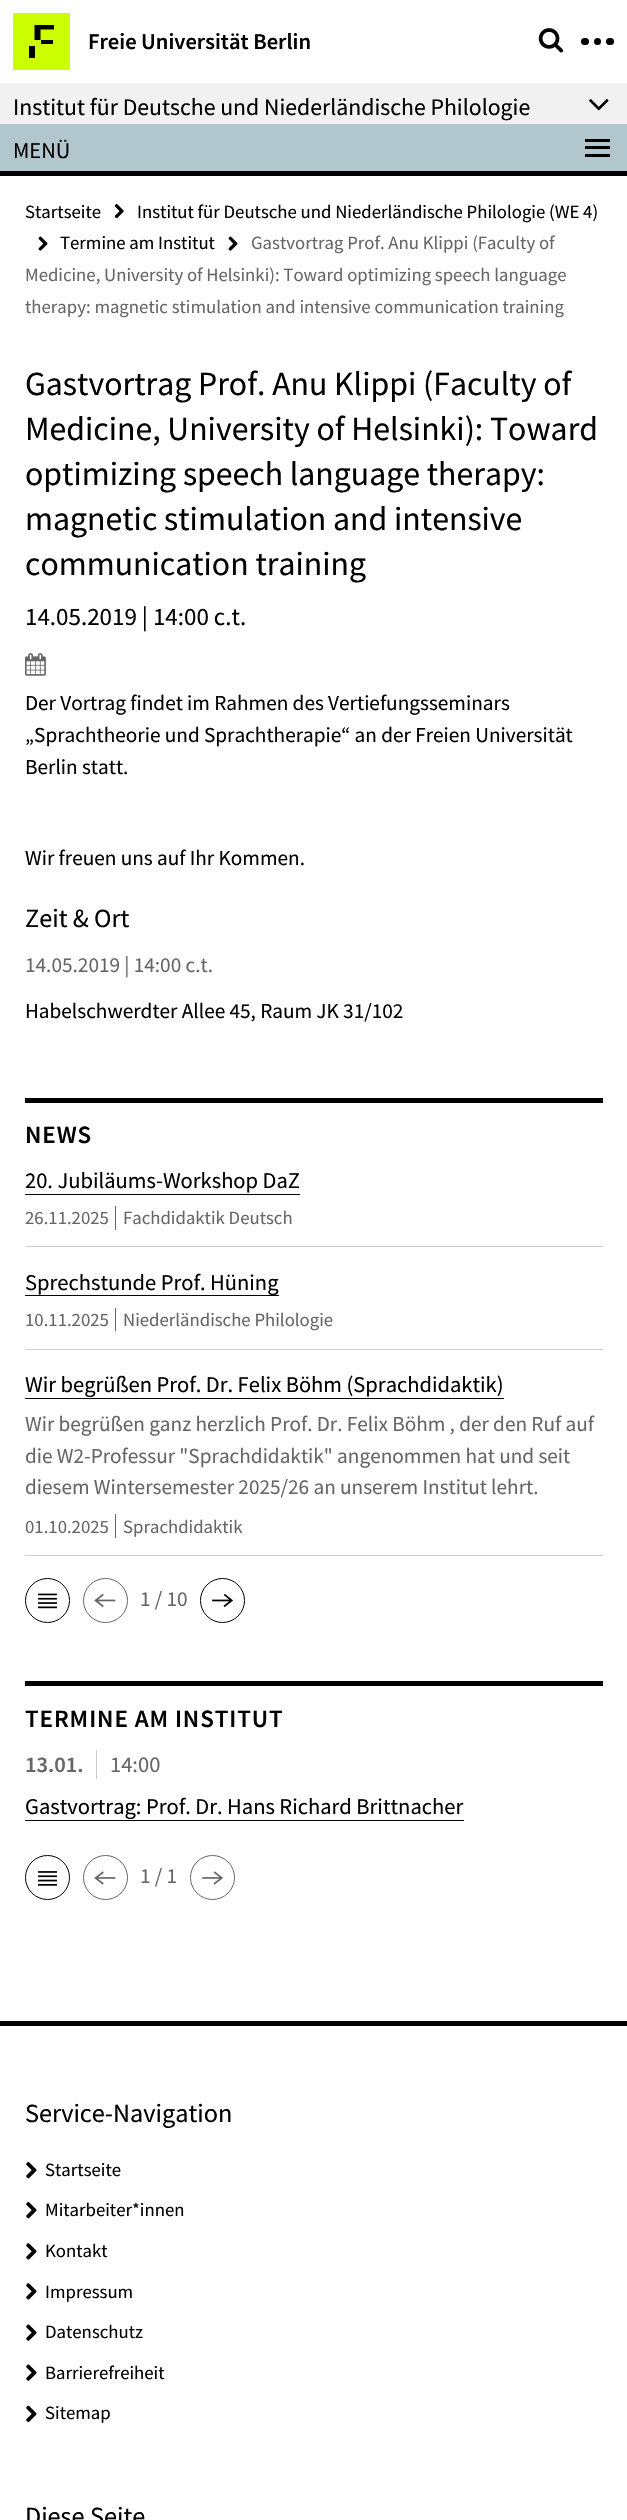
void draw(SkCanvas* c) {
SkPaint p;
p.setAntiAlias(true);
auto F=[&](const char* family, int weight, float size, bool italic = false){SkFontStyle style(weight, SkFontStyle::kNormal_Width,italic ? SkFontStyle::kItalic_Slant : SkFontStyle::kUpright_Slant);SkFont result(fontMgr->matchFamilyStyle(family, style), size);result.setSubpixel(true);return result;};
auto T=[&](const char* s, float x, float y, const SkFont& font){c->drawString(s, x, y, font, p);};
auto L=[&](const char* s, float x, float y, const SkFont& font, const SkPaint& ink, float letter, float word){std::vector<SkGlyphID> glyphs(font.countText(s, strlen(s), SkTextEncoding::kUTF8));std::vector<float> xs(glyphs.size());font.textToGlyphs(s, strlen(s), SkTextEncoding::kUTF8, glyphs);font.getXPos(glyphs, xs, x);float extra = 0;for (size_t i = 0; i < glyphs.size(); i++) {xs[i] += extra;extra += letter + word * (glyphs[i] == font.unicharToGlyph(' '));}c->drawTextBlob(SkTextBlob::MakeFromPosHGlyphs(glyphs, xs, y, font), 0, 0, ink);};
auto R=[&](float x, float y, float w, float h){c->drawRect(SkRect::MakeXYWH(x, y, w, h), p);};
auto Q=[&](float x, float y, float w, float h, float radius){c->drawRoundRect(SkRect::MakeXYWH(x, y, w, h), radius, radius, p);};
auto I=[&](const char* path, float x, float y, float w, float h){auto image = SkImages::DeferredFromEncodedData(SkData::MakeFromFileName(path));c->drawImageRect(image, SkRect::MakeXYWH(x, y, w, h), SkSamplingOptions());};
auto P=[&](const char* data, bool evenOdd = false){SkPath result = *SkParsePath::FromSVGString(data);if (evenOdd) result.setFillType(SkPathFillType::kEvenOdd);return result;};
c->clear(0xffffffff);
p.setColor(0xffccff00);
R(13,13,57,57);
p.setColor(0xff000000);
c->drawPath(P("M34.5 25h19.5v4.5h-13.5v10.5h-6z"),p);
R(41,40,12,4);
R(29,46,6,12);
auto f1 = F("Source Sans Pro",600,22.5);
T("Freie Universität Berlin",88,49,f1);
I("1.png",538,28,26,25);
Q(581,38,8,7,3.5);
c->drawCircle(597.5,41.5,3.5,p);
Q(606,38,8,7,3.5);
p.setColor(0xfff1f1f1);
R(0,83,627,41);
auto f2 = F("Source Sans Pro",400,23.75);
p.setColor(0xff000000);
T("Institut für Deutsche und Niederländische Philologie",13,115,f2);
I("2.png",589,99,20,12);
p.setColor(0xffb2c7cd);
R(0,124,627,47);
p.setColor(0xff000000);
R(0,171,627,5);
auto f3 = F("Source Sans Pro",400,22.5);
T("MENÜ",13,158,f3);
R(585,139,25,3);
R(585,146,25,3);
R(585,154,25,3);
auto f4 = F("Source Sans Pro",400,18.75);
T("Startseite",25,218,f4);
I("3.png",114,204,10,15);
T("Institut für Deutsche und Niederländische Philologie (WE 4)",137,218,f4);
I("4.png",38,236,10,15);
T("Termine am Institut",60,249,f4);
I("4.png",228,236,10,15);
p.setColor(0xff666666);
T("Gastvortrag Prof. Anu Klippi (Faculty of",251,249,f4);
T("Medicine, University of Helsinki): Toward optimizing speech language",25,281,f4);
T("therapy: magnetic stimulation and intensive communication training",25,313,f4);
auto f5 = F("Source Sans Pro",400,33.75);
p.setColor(0xff000000);
T("Gastvortrag Prof. Anu Klippi (Faculty of",25,395,f5);
T("Medicine, University of Helsinki): Toward",25,440,f5);
T("optimizing speech language therapy:",25,485,f5);
T("magnetic stimulation and intensive",25,530,f5);
T("communication training",25,575,f5);
auto f6 = F("Source Sans Pro",400,25);
T("14.05.2019 | 14:00 c.t.",25,625,f6);
I("5.png",25,653,21,23);
auto f7 = F("Source Sans Pro",400,21.25);
T("Der Vortrag findet im Rahmen des Vertiefungsseminars",25,710,f7);
T("„Sprachtheorie und Sprachtherapie“ an der Freien Universität",25,742,f7);
T("Berlin statt.",25,774,f7);
T("Wir freuen uns auf Ihr Kommen.",25,865,f7);
auto f8 = F("Source Sans Pro",400,26.25);
T("Zeit & Ort",25,927,f8);
p.setColor(0xff666666);
T("14.05.2019 | 14:00 c.t.",25,972,f7);
p.setColor(0xff000000);
T("Habelschwerdter Allee 45, Raum JK 31/102",25,1018,f7);
R(25,1098,578,5);
auto f9 = F("Source Sans Pro",600,25);
L("NEWS",25,1143,f9,p,.9,0);
p.setColor(0xffcccccc);
R(25,1246,578,1);
p.setColor(0xff000000);
T("20. Jubiläums-Workshop DaZ",25,1188,f3);
R(25,1194,275,1);
p.setColor(0xff666666);
T("26.11.2025",25,1224,f4);
T("Fachdidaktik Deutsch",123,1224,f4);
R(115,1206,1,24);
p.setColor(0xffcccccc);
R(25,1349,578,1);
p.setColor(0xff000000);
R(25,1295,254,1);
T("Sprechstunde Prof. Hüning",25,1290,f3);
p.setColor(0xff666666);
T("10.11.2025",25,1326,f4);
T("Niederländische Philologie",123,1326,f4);
R(115,1308,1,23);
p.setColor(0xffcccccc);
R(25,1555,578,1);
p.setColor(0xff000000);
T("Wir begrüßen Prof. Dr. Felix Böhm (Sprachdidaktik)",25,1392,f3);
R(25,1398,479,1);
p.setColor(0xff666666);
T("Wir begrüßen ganz herzlich Prof. Dr. Felix Böhm , der den Ruf auf",25,1431,f7);
T("die W2-Professur \"Sprachdidaktik\" angenommen hat und seit",25,1463,f7);
T("diesem Wintersemester 2025/26 an unserem Institut lehrt.",25,1494,f7);
T("01.10.2025",25,1533,f4);
T("Sprachdidaktik",123,1533,f4);
R(115,1514,1,24);
p.setStroke(true);
p.setStrokeWidth(1);
p.setColor(0xff000000);
c->drawCircle(47.5,1600.5,22,p);
I("6.png",38,1593,19,16);
p.setColor(0xff666666);
c->drawCircle(105.5,1600.5,22,p);
I("7.png",94,1593,22,15);
p.setStroke(false);
T("1 / 10",140,1606,f7);
p.setStroke(true);
p.setColor(0xff000000);
c->drawCircle(222.5,1600.5,22,p);
I("8.png",212,1593,21,15);
p.setStroke(false);
R(25,1681,578,5);
L("TERMINE AM INSTITUT",25,1727,f9,p,.9,0);
p.setColor(0xff666666);
T("13.01.",25,1772,f1);
T("14:00",110,1772,f3);
p.setColor(0xffcccccc);
R(96,1750,1,29);
p.setColor(0xff000000);
T("Gastvortrag: Prof. Dr. Hans Richard Brittnacher",25,1814,f3);
R(25,1820,439,1);
p.setStroke(true);
c->drawCircle(47.5,1877.5,22,p);
I("9.png",38,1871,19,15);
p.setColor(0xff666666);
c->drawCircle(105.5,1877.5,22,p);
I("10.png",94,1871,22,14);
p.setStroke(false);
T("1 / 1",140,1883,f7);
p.setStroke(true);
c->drawCircle(212.5,1877.5,22,p);
I("11.png",202,1871,21,14);
p.setStroke(false);
p.setColor(0xff000000);
R(0,2021,627,5);
T("Service-Navigation",25,2122,f8);
I("12.png",26,2162,11,17);
T("Startseite",45,2176,f4);
I("12.png",26,2202,11,17);
T("Mitarbeiter*innen",45,2216,f4);
I("13.png",26,2243,11,17);
T("Kontakt",45,2257,f4);
I("13.png",26,2283,11,17);
T("Impressum",45,2298,f4);
I("14.png",26,2324,11,17);
T("Datenschutz",45,2338,f4);
I("14.png",26,2364,11,17);
T("Barrierefreiheit",45,2379,f4);
I("15.png",26,2405,11,17);
T("Sitemap",45,2419,f4);
T("Diese Seite",25,2525,f8);
}
